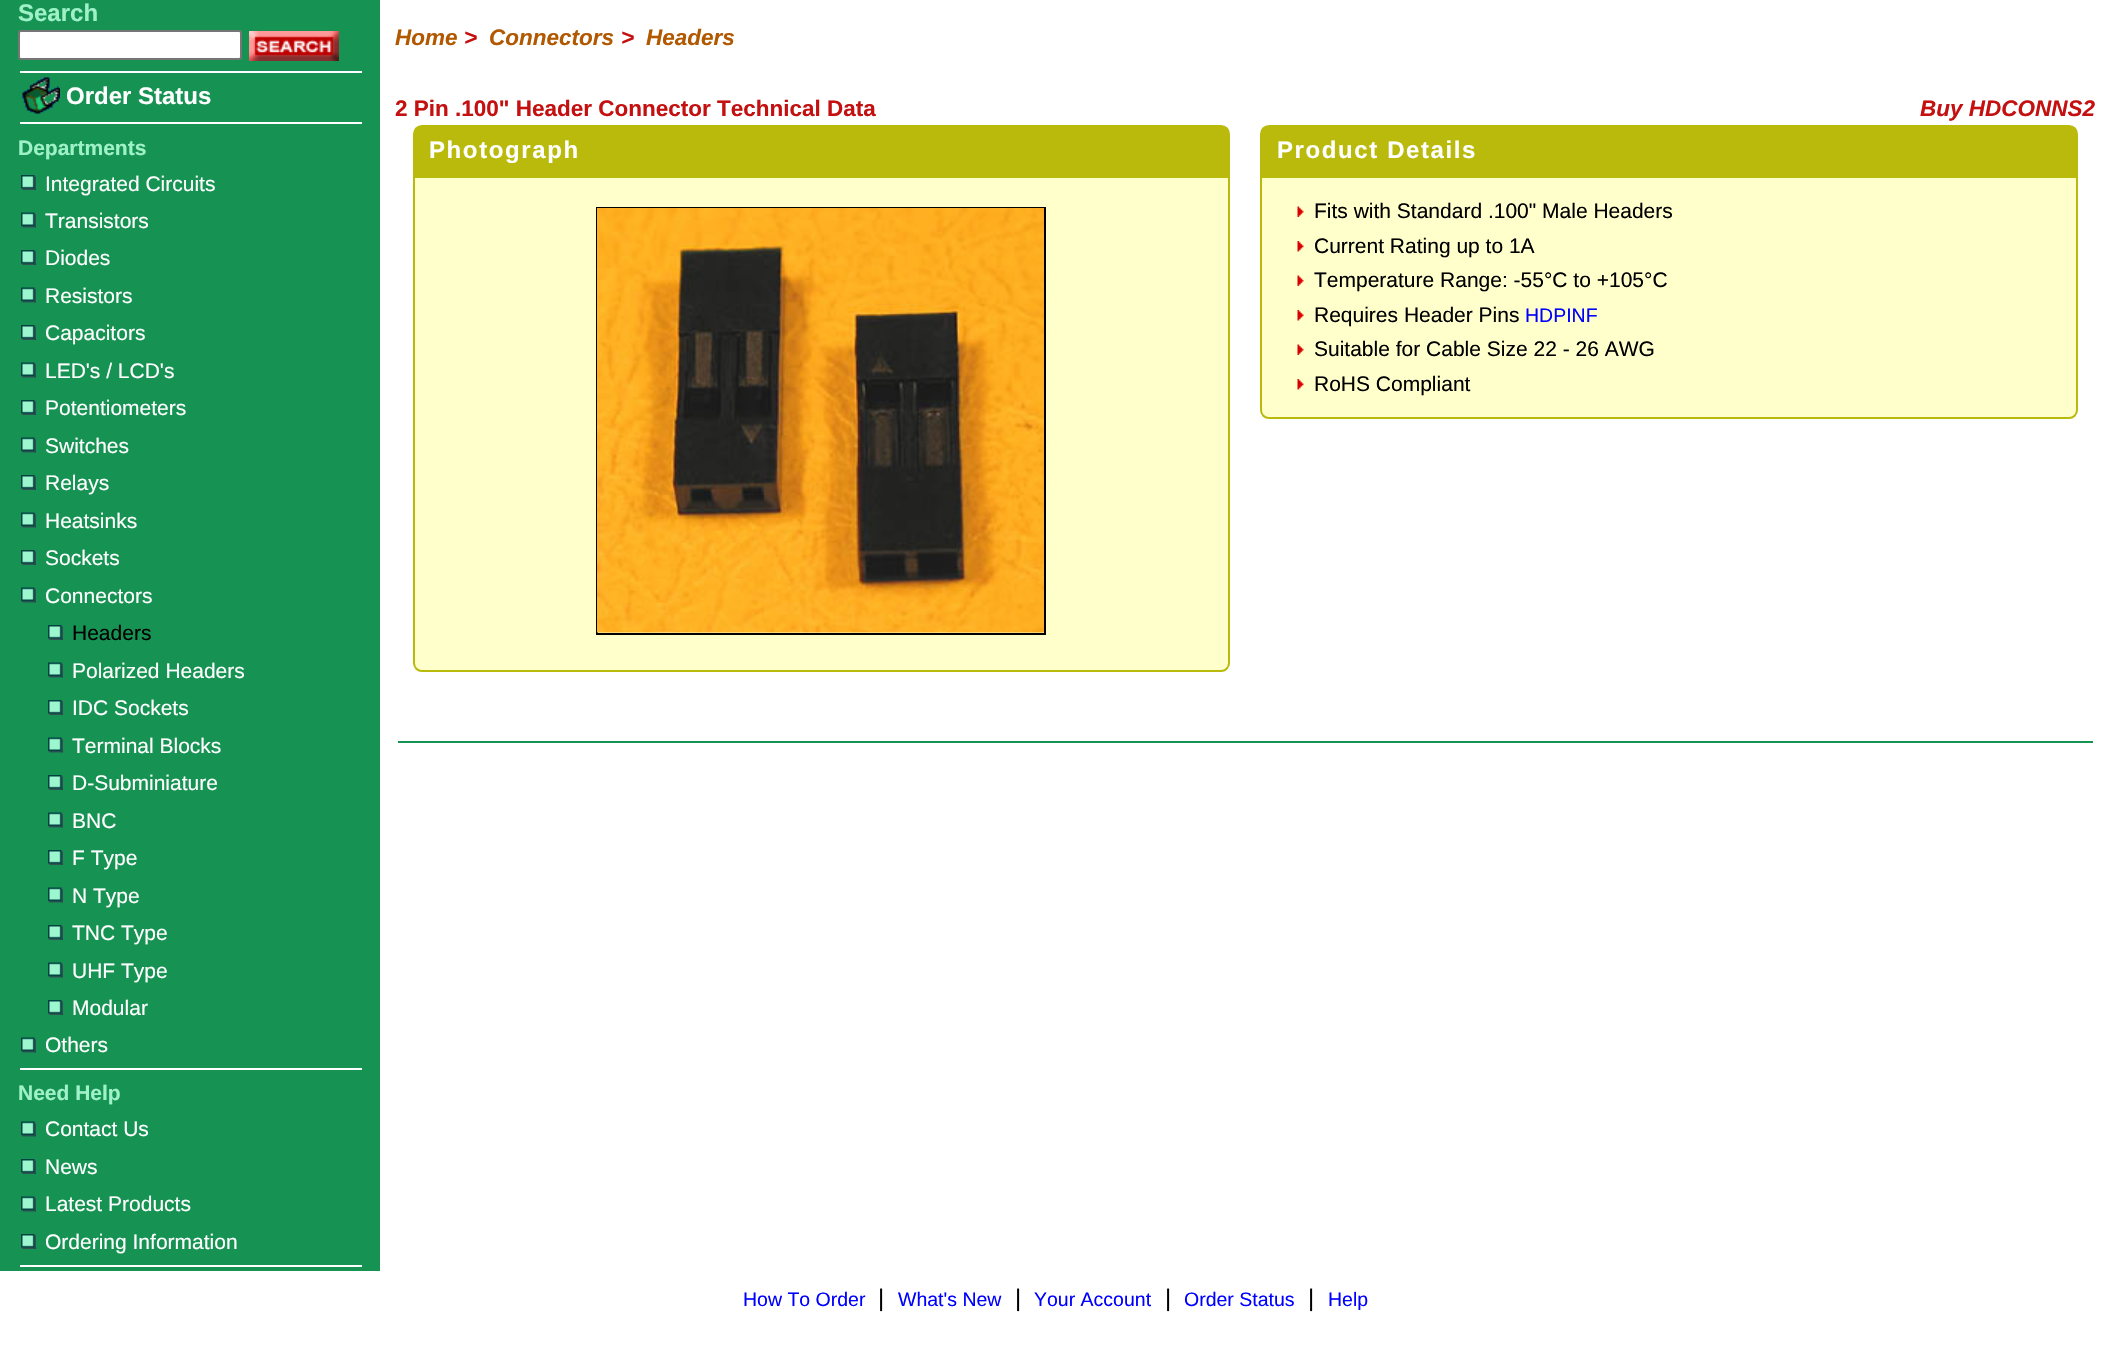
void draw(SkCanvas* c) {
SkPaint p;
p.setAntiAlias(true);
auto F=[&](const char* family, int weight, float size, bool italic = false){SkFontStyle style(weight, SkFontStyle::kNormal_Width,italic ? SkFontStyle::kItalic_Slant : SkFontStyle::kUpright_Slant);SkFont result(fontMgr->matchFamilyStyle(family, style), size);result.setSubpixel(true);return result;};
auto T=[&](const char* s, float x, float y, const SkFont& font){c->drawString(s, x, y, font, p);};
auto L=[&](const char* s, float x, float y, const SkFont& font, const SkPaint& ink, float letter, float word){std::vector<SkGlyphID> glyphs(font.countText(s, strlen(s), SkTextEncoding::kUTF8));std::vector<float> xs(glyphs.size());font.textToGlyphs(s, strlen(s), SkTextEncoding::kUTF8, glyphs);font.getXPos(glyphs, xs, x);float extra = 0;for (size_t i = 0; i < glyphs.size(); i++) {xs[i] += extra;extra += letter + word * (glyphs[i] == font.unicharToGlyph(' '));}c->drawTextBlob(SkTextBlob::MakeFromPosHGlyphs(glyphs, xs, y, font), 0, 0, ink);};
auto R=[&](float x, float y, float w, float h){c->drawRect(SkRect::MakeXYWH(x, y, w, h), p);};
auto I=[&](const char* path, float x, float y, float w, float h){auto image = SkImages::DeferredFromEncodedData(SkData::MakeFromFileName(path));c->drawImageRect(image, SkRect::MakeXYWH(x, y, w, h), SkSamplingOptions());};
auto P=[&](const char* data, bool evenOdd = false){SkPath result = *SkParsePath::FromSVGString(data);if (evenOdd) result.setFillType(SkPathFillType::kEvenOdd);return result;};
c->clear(0xffffffff);
p.setColor(0xff169253);
R(0,0,380,1271);
auto f1 = F("Liberation Sans",700,24);
p.setColor(0xff9ff1c8);
T("Search",18,21,f1);
p.setColor(0xffffffff);
c->drawRoundRect(SkRect::MakeXYWH(19,31,222,28),2,2,p);
p.setStroke(true);
p.setStrokeWidth(2);
p.setColor(0xff767676);
c->drawRoundRect(SkRect::MakeXYWH(19,31,222,28),2,2,p);
I("1.png",249,31,90,30);
p.setStroke(false);
p.setColor(0xffffffff);
R(20,71,342,2);
I("2.png",22,77,38,37);
T("Order Status",66,104,f1);
R(20,122,342,2);
auto f2 = F("Liberation Sans",700,21);
p.setColor(0xff9ff1c8);
T("Departments",18,155,f2);
I("3.png",21,175,15,15);
auto f3 = F("Liberation Sans",400,21);
p.setColor(0xffffffff);
T("Integrated Circuits",45,191,f3);
I("4.png",21,212,15,16);
T("Transistors",45,228,f3);
I("3.png",21,250,15,15);
T("Diodes",45,265,f3);
I("4.png",21,287,15,16);
T("Resistors",45,303,f3);
I("3.png",21,325,15,15);
T("Capacitors",45,340,f3);
I("4.png",21,362,15,16);
T("LED's / LCD's",45,378,f3);
I("3.png",21,400,15,15);
T("Potentiometers",45,415,f3);
I("4.png",21,437,15,16);
T("Switches",45,453,f3);
I("3.png",21,475,15,15);
T("Relays",45,490,f3);
I("4.png",21,512,15,16);
T("Heatsinks",45,528,f3);
I("3.png",21,550,15,15);
T("Sockets",45,565,f3);
I("4.png",21,587,15,16);
T("Connectors",45,603,f3);
I("3.png",48,625,15,15);
p.setColor(0xff000000);
T("Headers",72,640,f3);
I("4.png",48,662,15,16);
p.setColor(0xffffffff);
T("Polarized Headers",72,678,f3);
I("3.png",48,700,15,15);
T("IDC Sockets",72,715,f3);
I("4.png",48,737,15,16);
T("Terminal Blocks",72,753,f3);
I("3.png",48,775,15,15);
T("D-Subminiature",72,790,f3);
I("4.png",48,812,15,16);
T("BNC",72,828,f3);
I("3.png",48,850,15,15);
T("F Type",72,865,f3);
I("4.png",48,887,15,16);
T("N Type",72,903,f3);
I("3.png",48,925,15,15);
T("TNC Type",72,940,f3);
I("4.png",48,962,15,16);
T("UHF Type",72,978,f3);
I("3.png",48,1000,15,15);
T("Modular",72,1015,f3);
I("4.png",21,1037,15,16);
T("Others",45,1052,f3);
R(20,1068,342,2);
p.setColor(0xff9ff1c8);
T("Need Help",18,1100,f2);
I("4.png",21,1121,15,16);
p.setColor(0xffffffff);
T("Contact Us",45,1136,f3);
I("3.png",21,1159,15,15);
T("News",45,1174,f3);
I("4.png",21,1196,15,16);
T("Latest Products",45,1211,f3);
I("3.png",21,1234,15,15);
T("Ordering Information",45,1249,f3);
R(20,1265,342,2);
auto f4 = F("Liberation Sans",700,22.5,true);
p.setColor(0xffb15800);
T("Home",395,45,f4);
p.setColor(0xffc41010);
T(">",464,45,f4);
p.setColor(0xffb15800);
T("Connectors",489,45,f4);
p.setColor(0xffc41010);
T(">",621,45,f4);
p.setColor(0xffb15800);
T("Headers",646,45,f4);
auto f5 = F("Liberation Sans",700,22.5);
p.setColor(0xffc41010);
T("2 Pin .100\" Header Connector Technical Data",395,116,f5);
T("Buy HDCONNS2",1920,116,f4);
p.setColor(0xffbaba0c);
c->drawPath(P("M422 126h799c4.5 0 8 3.5 8 8v41h-815v-41c0-4.5 3.5-8 8-8z"),p);
p.setStroke(true);
c->drawPath(P("M422 126h799c4.5 0 8 3.5 8 8v41h-815v-41c0-4.5 3.5-8 8-8z"),p);
p.setStroke(false);
p.setColor(0xffffffff);
L("Photograph",429,158,f1,p,1.6,0);
p.setColor(0xffffffcc);
c->drawPath(P("M414 177h815v486c0 4.5-3.5 8-8 8h-799c-4.5 0-8-3.5-8-8z"),p);
p.setStroke(true);
p.setColor(0xffbaba0c);
c->drawPath(P("M414 177h815v486c0 4.5-3.5 8-8 8h-799c-4.5 0-8-3.5-8-8z"),p);
p.setColor(0xff000000);
c->drawRect(SkRect::MakeXYWH(597,208,448,426),p);
I("5.png",597,208,447,425);
p.setStroke(false);
p.setColor(0xffbaba0c);
c->drawPath(P("M1269 126h800c4.5 0 8 3.5 8 8v41h-816v-41c0-4.5 3.5-8 8-8z"),p);
p.setStroke(true);
c->drawPath(P("M1269 126h800c4.5 0 8 3.5 8 8v41h-816v-41c0-4.5 3.5-8 8-8z"),p);
p.setStroke(false);
p.setColor(0xffffffff);
L("Product Details",1277,158,f1,p,1.6,0);
p.setColor(0xffffffcc);
c->drawPath(P("M1261 177h816v233c0 4.5-3.5 8-8 8h-800c-4.5 0-8-3.5-8-8z"),p);
p.setStroke(true);
p.setColor(0xffbaba0c);
c->drawPath(P("M1261 177h816v233c0 4.5-3.5 8-8 8h-800c-4.5 0-8-3.5-8-8z"),p);
I("6.png",1297,206,7,11);
p.setStroke(false);
p.setColor(0xff000000);
T("Fits with Standard .100\" Male Headers",1314,218,f3);
I("7.png",1297,241,7,11);
T("Current Rating up to 1A",1314,253,f3);
I("6.png",1297,275,7,11);
T("Temperature Range: -55°C to +105°C",1314,287,f3);
I("7.png",1297,310,7,11);
T("Requires Header Pins",1314,322,f3);
auto f6 = F("Liberation Sans",400,19.5);
p.setColor(0xff0000ff);
T("HDPINF",1525,322,f6);
I("6.png",1297,344,7,11);
p.setColor(0xff000000);
T("Suitable for Cable Size 22 - 26 AWG",1314,356,f3);
I("7.png",1297,379,7,11);
T("RoHS Compliant",1314,391,f3);
p.setColor(0xff169253);
R(398,741,1695,2);
p.setColor(0xff0000ff);
T("How To Order",743,1306,f6);
auto f7 = F("Liberation Sans",400,24);
p.setColor(0xff000000);
T("|",878,1306,f7);
p.setColor(0xff0000ff);
T("What's New",898,1306,f6);
p.setColor(0xff000000);
T("|",1015,1306,f7);
p.setColor(0xff0000ff);
T("Your Account",1034,1306,f6);
p.setColor(0xff000000);
T("|",1165,1306,f7);
p.setColor(0xff0000ff);
T("Order Status",1184,1306,f6);
p.setColor(0xff000000);
T("|",1308,1306,f7);
p.setColor(0xff0000ff);
T("Help",1328,1306,f6);
}
